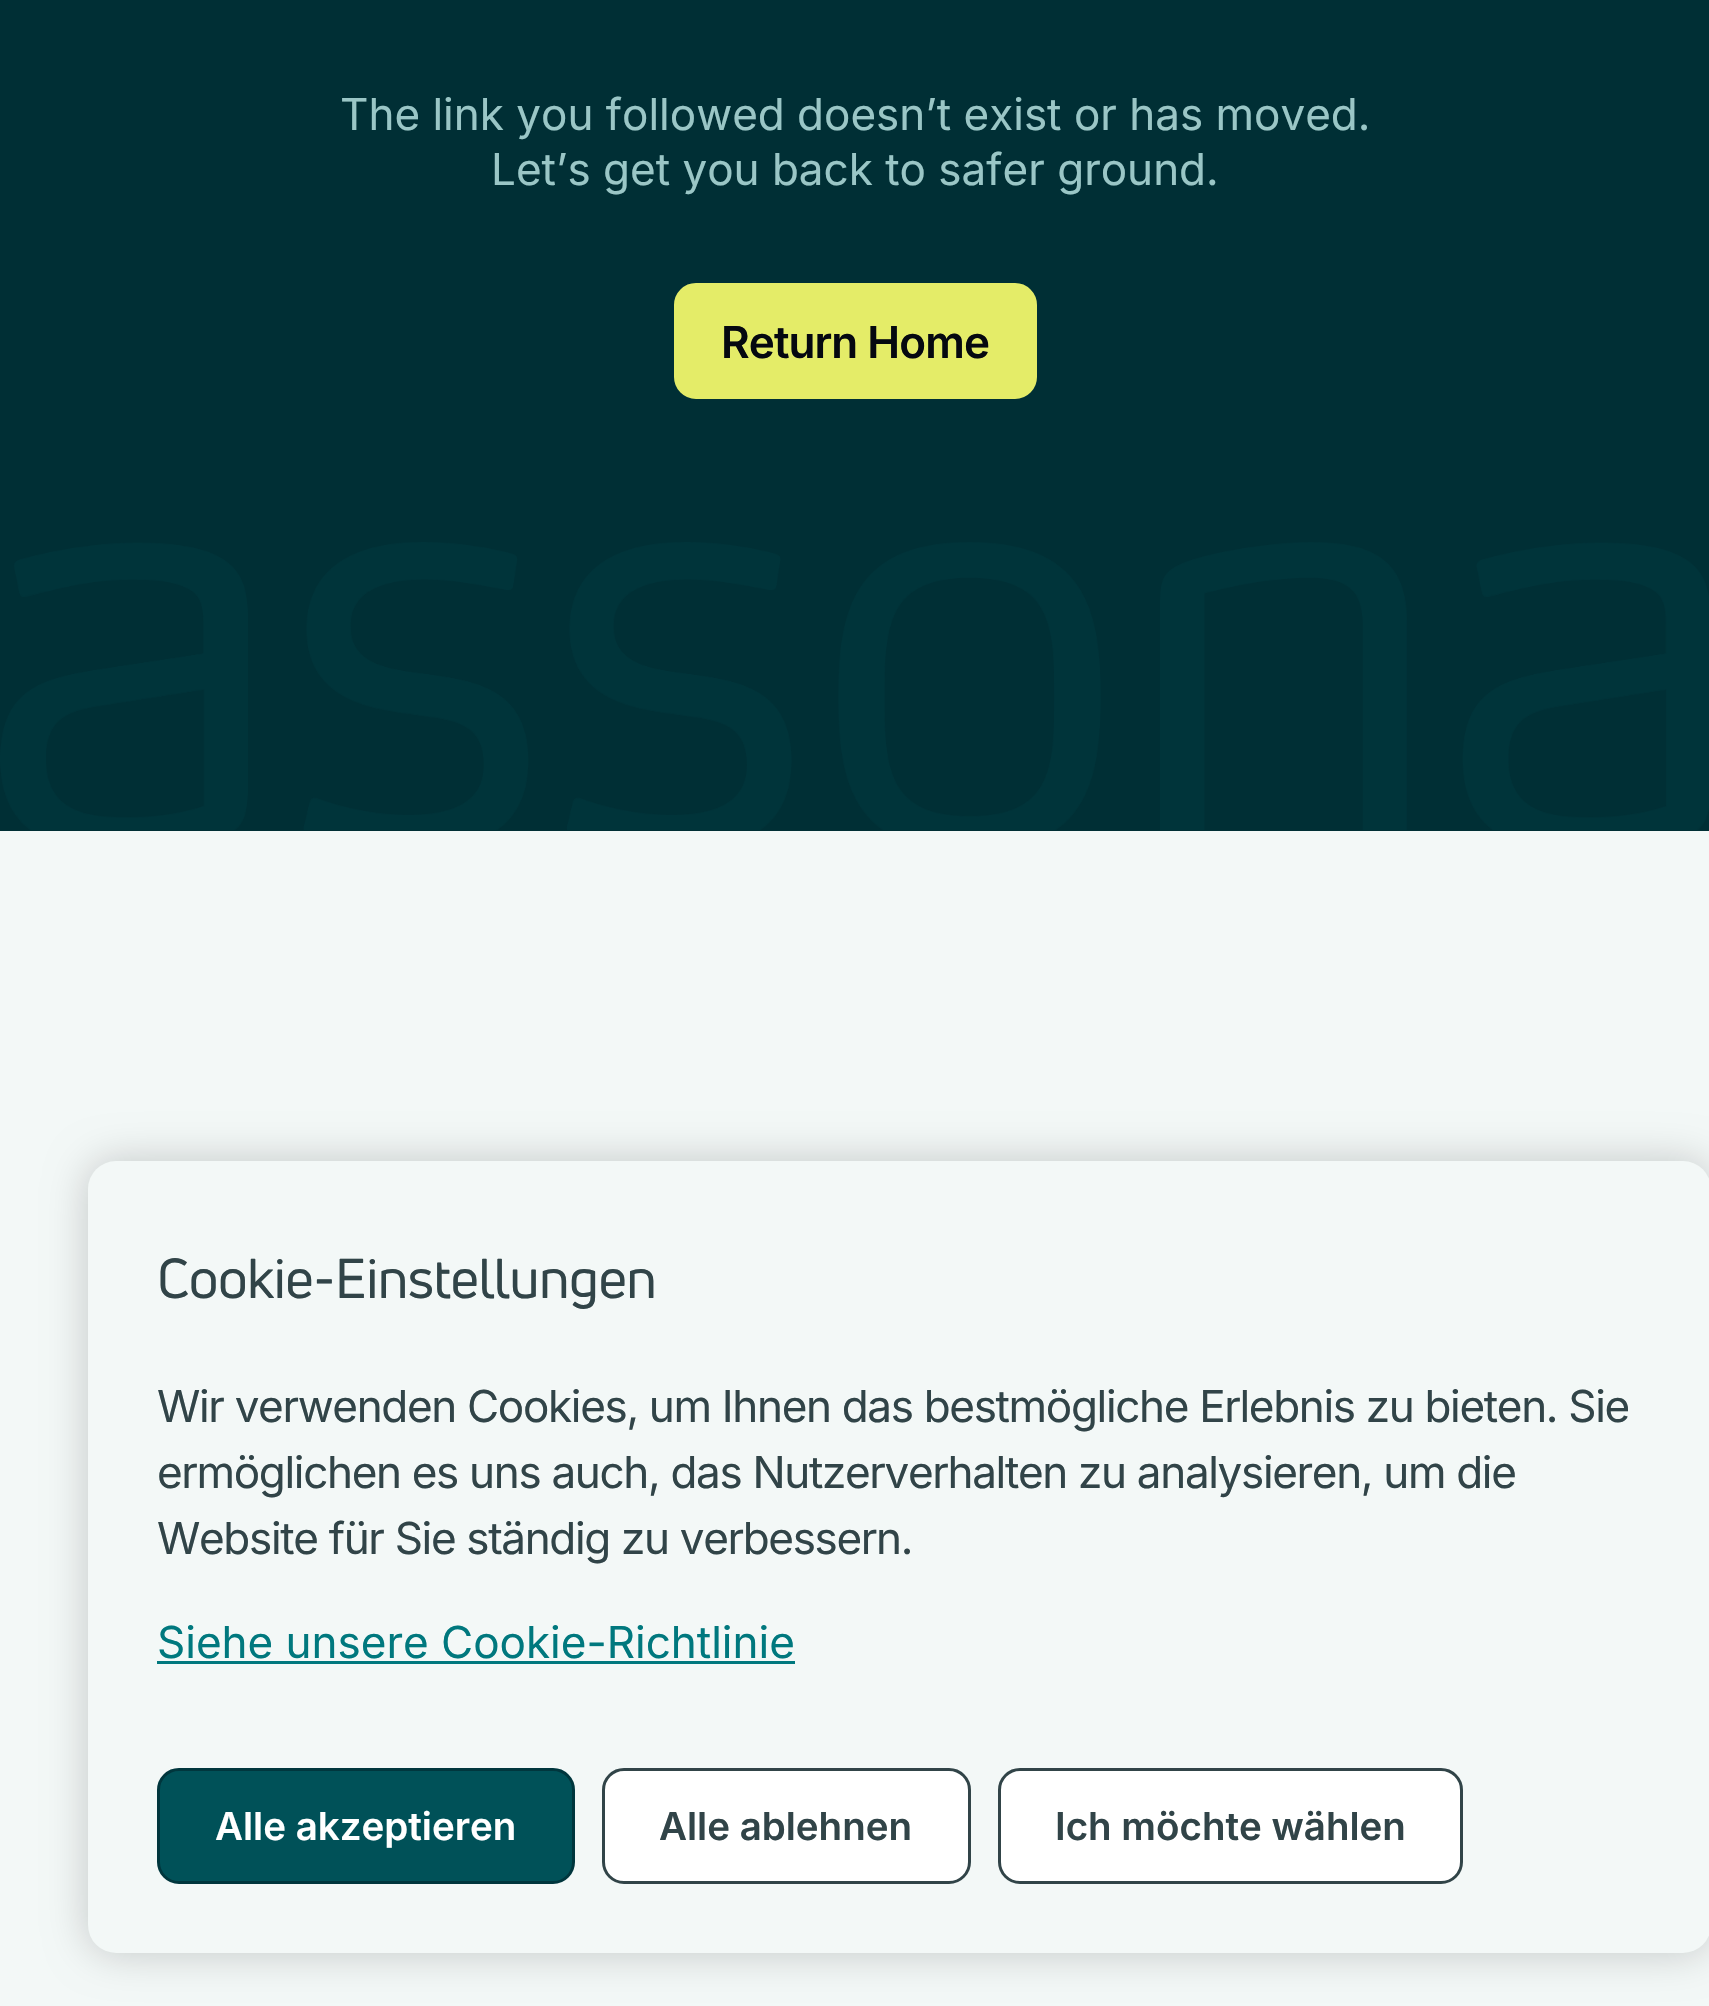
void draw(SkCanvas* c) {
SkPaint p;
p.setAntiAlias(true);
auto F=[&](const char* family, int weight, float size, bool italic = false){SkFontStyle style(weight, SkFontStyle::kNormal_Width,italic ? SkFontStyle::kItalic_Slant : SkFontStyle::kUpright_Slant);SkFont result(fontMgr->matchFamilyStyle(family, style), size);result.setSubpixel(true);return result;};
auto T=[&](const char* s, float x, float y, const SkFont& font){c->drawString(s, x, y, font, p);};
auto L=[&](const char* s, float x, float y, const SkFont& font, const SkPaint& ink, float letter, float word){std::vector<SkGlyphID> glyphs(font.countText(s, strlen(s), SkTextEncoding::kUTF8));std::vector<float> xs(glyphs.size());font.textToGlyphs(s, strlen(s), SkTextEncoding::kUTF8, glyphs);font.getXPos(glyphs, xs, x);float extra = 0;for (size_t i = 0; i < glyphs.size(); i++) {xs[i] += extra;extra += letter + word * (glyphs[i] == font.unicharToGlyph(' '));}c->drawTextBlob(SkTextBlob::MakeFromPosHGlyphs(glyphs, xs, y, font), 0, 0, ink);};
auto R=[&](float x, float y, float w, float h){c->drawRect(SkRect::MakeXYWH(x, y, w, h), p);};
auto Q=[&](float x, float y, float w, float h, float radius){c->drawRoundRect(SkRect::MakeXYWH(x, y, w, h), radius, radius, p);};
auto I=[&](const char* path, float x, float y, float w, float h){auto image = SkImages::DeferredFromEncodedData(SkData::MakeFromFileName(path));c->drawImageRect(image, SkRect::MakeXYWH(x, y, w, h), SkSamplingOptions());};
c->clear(0xff002f35);
auto f1 = F("Inter",400,44);
p.setColor(0xff9ac6c6);
T("The link you followed doesn’t exist or has moved.",340,130,f1);
T("Let’s get you back to safer ground.",491,185,f1);
p.setColor(0xffe4ec68);
c->drawRoundRect(SkRect::MakeXYWH(675.5,284.5,360,113),20.5,20.5,p);
p.setStroke(true);
p.setStrokeWidth(3);
c->drawRoundRect(SkRect::MakeXYWH(675.5,284.5,360,113),20.5,20.5,p);
auto f2 = F("Inter",600,44);
p.setStroke(false);
p.setColor(0xff050810);
L("Return Home",721,358,f2,p,-.9,0);
I("1.png",0,542,1709,288);
p.setColor(0xfff3f8f7);
R(0,831,1709,1175);
p.setColor(0x33000000);
p.setMaskFilter(SkMaskFilter::MakeBlur(kNormal_SkBlurStyle, 20.5));
c->drawRoundRect(SkRect::MakeXYWH(88,1161,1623,792),28,28,p);
p.setMaskFilter(nullptr);
p.setColor(0xfff3f8f7);
Q(88,1161,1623,792,28);
auto f3 = F("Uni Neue",400,55);
p.setColor(0xff314448);
L("Cookie-Einstellungen",157,1298,f3,p,-.55,0);
L("Wir verwenden Cookies, um Ihnen das bestmögliche Erlebnis zu bieten. Sie",157,1422,f1,p,-1.32,0);
L("ermöglichen es uns auch, das Nutzerverhalten zu analysieren, um die",157,1488,f1,p,-1.32,0);
L("Website für Sie ständig zu verbessern.",157,1554,f1,p,-1.32,0);
p.setColor(0xff00787e);
T("Siehe unsere Cookie-Richtlinie",157,1658,f1);
R(157,1661,638,3);
p.setColor(0xff005158);
c->drawRoundRect(SkRect::MakeXYWH(158.5,1769.5,415,113),20.5,20.5,p);
p.setStroke(true);
p.setColor(0xff00363d);
c->drawRoundRect(SkRect::MakeXYWH(158.5,1769.5,415,113),20.5,20.5,p);
auto f4 = F("Inter",600,38.5);
p.setStroke(false);
p.setColor(0xffffffff);
T("Alle akzeptieren",215,1840,f4);
c->drawRoundRect(SkRect::MakeXYWH(603.5,1769.5,366,113),20.5,20.5,p);
p.setStroke(true);
p.setColor(0xff314448);
c->drawRoundRect(SkRect::MakeXYWH(603.5,1769.5,366,113),20.5,20.5,p);
p.setStroke(false);
T("Alle ablehnen",659,1840,f4);
p.setColor(0xffffffff);
c->drawRoundRect(SkRect::MakeXYWH(999.5,1769.5,462,113),20.5,20.5,p);
p.setStroke(true);
p.setColor(0xff314448);
c->drawRoundRect(SkRect::MakeXYWH(999.5,1769.5,462,113),20.5,20.5,p);
p.setStroke(false);
T("Ich möchte wählen",1055,1840,f4);
}
